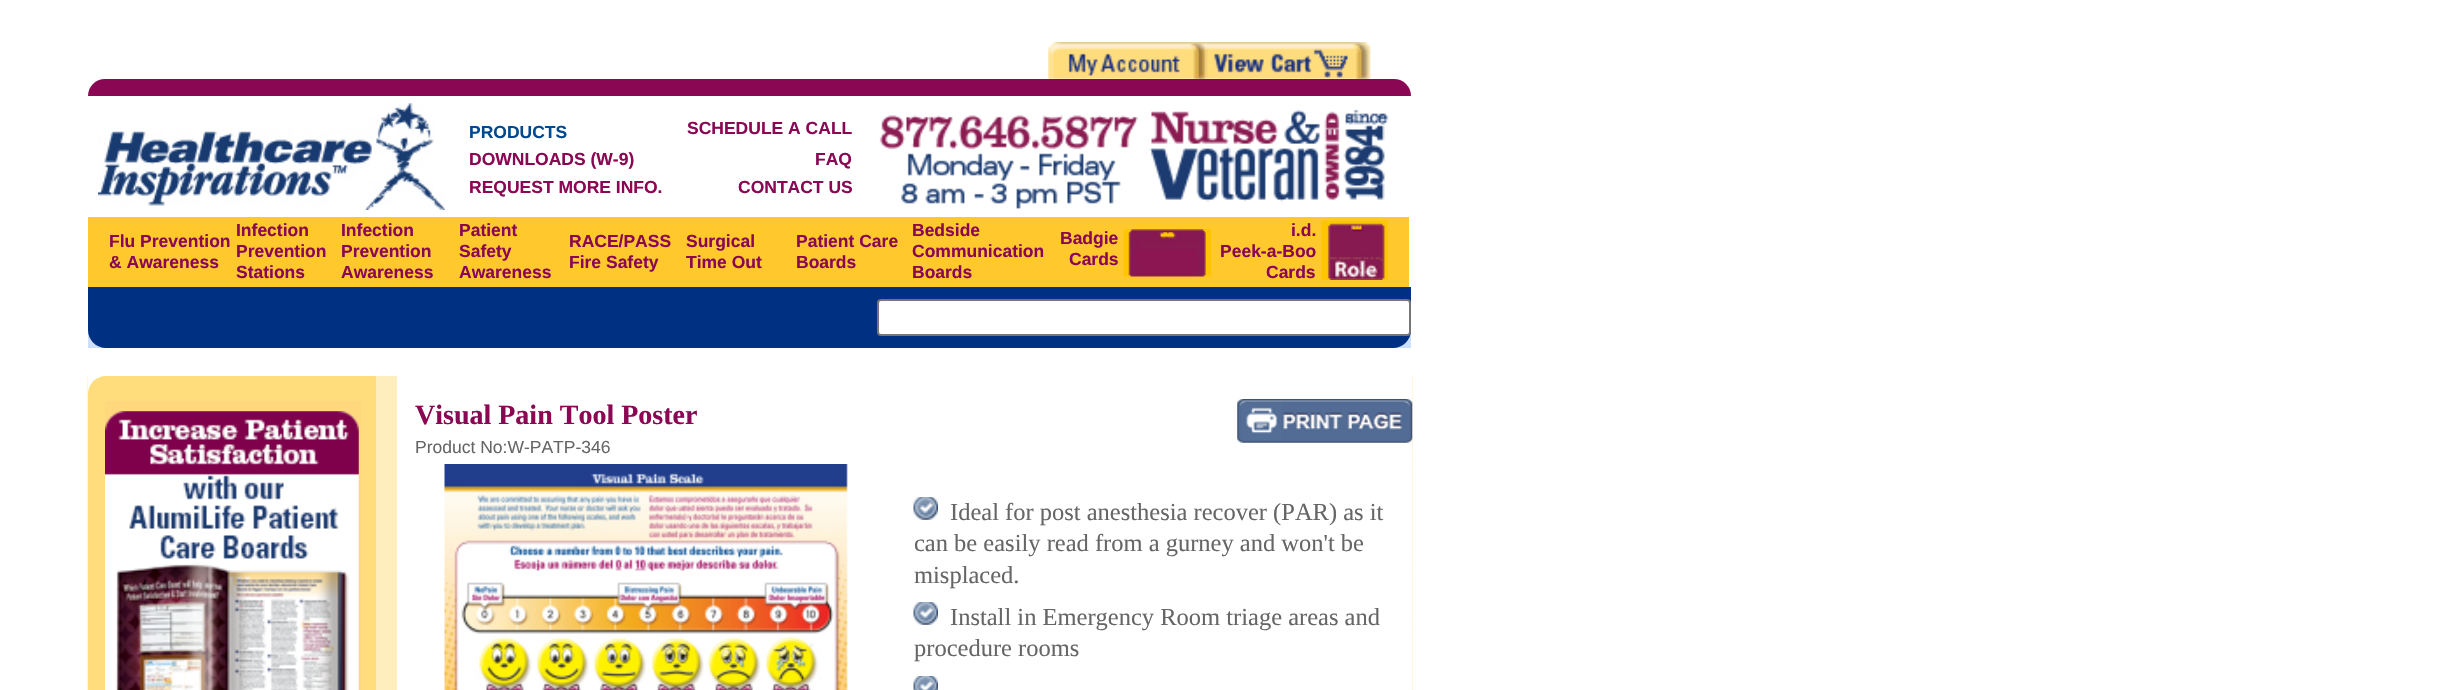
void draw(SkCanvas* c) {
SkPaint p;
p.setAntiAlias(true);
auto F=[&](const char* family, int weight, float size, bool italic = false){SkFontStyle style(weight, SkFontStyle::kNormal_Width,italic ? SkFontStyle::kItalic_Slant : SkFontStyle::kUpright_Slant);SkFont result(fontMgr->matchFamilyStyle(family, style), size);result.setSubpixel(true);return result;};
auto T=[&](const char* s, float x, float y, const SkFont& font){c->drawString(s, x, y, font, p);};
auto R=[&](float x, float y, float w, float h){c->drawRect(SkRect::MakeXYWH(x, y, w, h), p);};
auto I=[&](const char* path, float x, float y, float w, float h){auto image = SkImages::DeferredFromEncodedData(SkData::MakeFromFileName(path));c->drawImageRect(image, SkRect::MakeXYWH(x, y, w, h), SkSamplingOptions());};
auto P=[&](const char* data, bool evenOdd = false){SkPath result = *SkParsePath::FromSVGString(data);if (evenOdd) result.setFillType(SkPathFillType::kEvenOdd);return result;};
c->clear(0xffffffff);
I("1.png",1047,42,159,37);
I("2.png",1205,42,166,37);
p.setColor(0xff8a0753);
c->drawPath(P("M105 79h1289c9.5 0 17 7.5 17 17h-1323c0-9.5 7.5-17 17-17z"),p);
I("3.png",98,103,347,107);
auto f1 = F("Liberation Sans",700,17.5);
p.setColor(0xff004990);
T("PRODUCTS",469,138,f1);
p.setColor(0xff8a0753);
T("SCHEDULE A CALL",687,134,f1);
T("DOWNLOADS (W-9)",469,165,f1);
T("FAQ",815,165,f1);
T("REQUEST MORE INFO.",469,193,f1);
T("CONTACT US",738,193,f1);
I("4.png",879,109,510,100);
p.setColor(0xffffc82d);
R(88,217,1321,70);
p.setColor(0xff8a0753);
T("Flu Prevention",109,247,f1);
T("& Awareness",109,268,f1);
T("Infection",236,236,f1);
T("Prevention",236,257,f1);
T("Stations",236,278,f1);
T("Infection",341,236,f1);
T("Prevention",341,257,f1);
T("Awareness",341,278,f1);
T("Patient",459,236,f1);
T("Safety",459,257,f1);
T("Awareness",459,278,f1);
T("RACE/PASS",569,247,f1);
T("Fire Safety",569,268,f1);
T("Surgical",686,247,f1);
T("Time Out",686,268,f1);
T("Patient Care",796,247,f1);
T("Boards",796,268,f1);
T("Bedside",912,236,f1);
T("Communication",912,257,f1);
T("Boards",912,278,f1);
T("Badgie",1060,244,f1);
I("5.png",1123,229,88,48);
T("Cards",1069,265,f1);
T("i.d.",1291,236,f1);
I("6.png",1321,220,67,60);
T("Peek-a-Boo",1220,257,f1);
T("Cards",1266,278,f1);
p.setColor(0xffccdfff);
R(88,330,1323,18);
p.setColor(0xff003082);
c->drawPath(P("M88 287h1323v43c0 10-8 18-18 18h-1287c-10 0-18-8-18-18z"),p);
p.setColor(0xffffffff);
c->drawRoundRect(SkRect::MakeXYWH(878,300,532,35),3,3,p);
p.setStroke(true);
p.setStrokeWidth(2);
p.setColor(0xff767676);
c->drawRoundRect(SkRect::MakeXYWH(878,300,532,35),3,3,p);
I("7.png",87,376,1326,314);
p.setStroke(false);
p.setColor(0xffffffff);
R(88,376,1324,314);
p.setColor(0xffffdd7d);
c->drawPath(P("M106 376h270v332h-270c-10 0-18-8-18-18v-296c0-10 8-18 18-18z"),p);
p.setColor(0xffffd77c);
R(105,401,256,289);
I("8.png",105,411,254,279);
p.setColor(0xffffeebd);
R(376,376,21,314);
auto f2 = F("Liberation Serif",700,28);
p.setColor(0xff8a0753);
T("Visual Pain Tool Poster",415,424,f2);
I("9.png",1237,399,176,44);
auto f3 = F("Liberation Sans",400,17.5);
p.setColor(0xff666666);
T("Product No:W-PATP-346",415,453,f3);
I("10.png",444,464,404,226);
I("11.png",913,497,25,23);
auto f4 = F("Liberation Serif",400,24.5);
T("Ideal for post anesthesia recover (PAR) as it",950,520,f4);
T("can be easily read from a gurney and won't be",914,551,f4);
T("misplaced.",914,583,f4);
I("11.png",913,602,25,23);
T("Install in Emergency Room triage areas and",950,625,f4);
T("procedure rooms",914,656,f4);
I("12.png",913,676,25,14);
}
